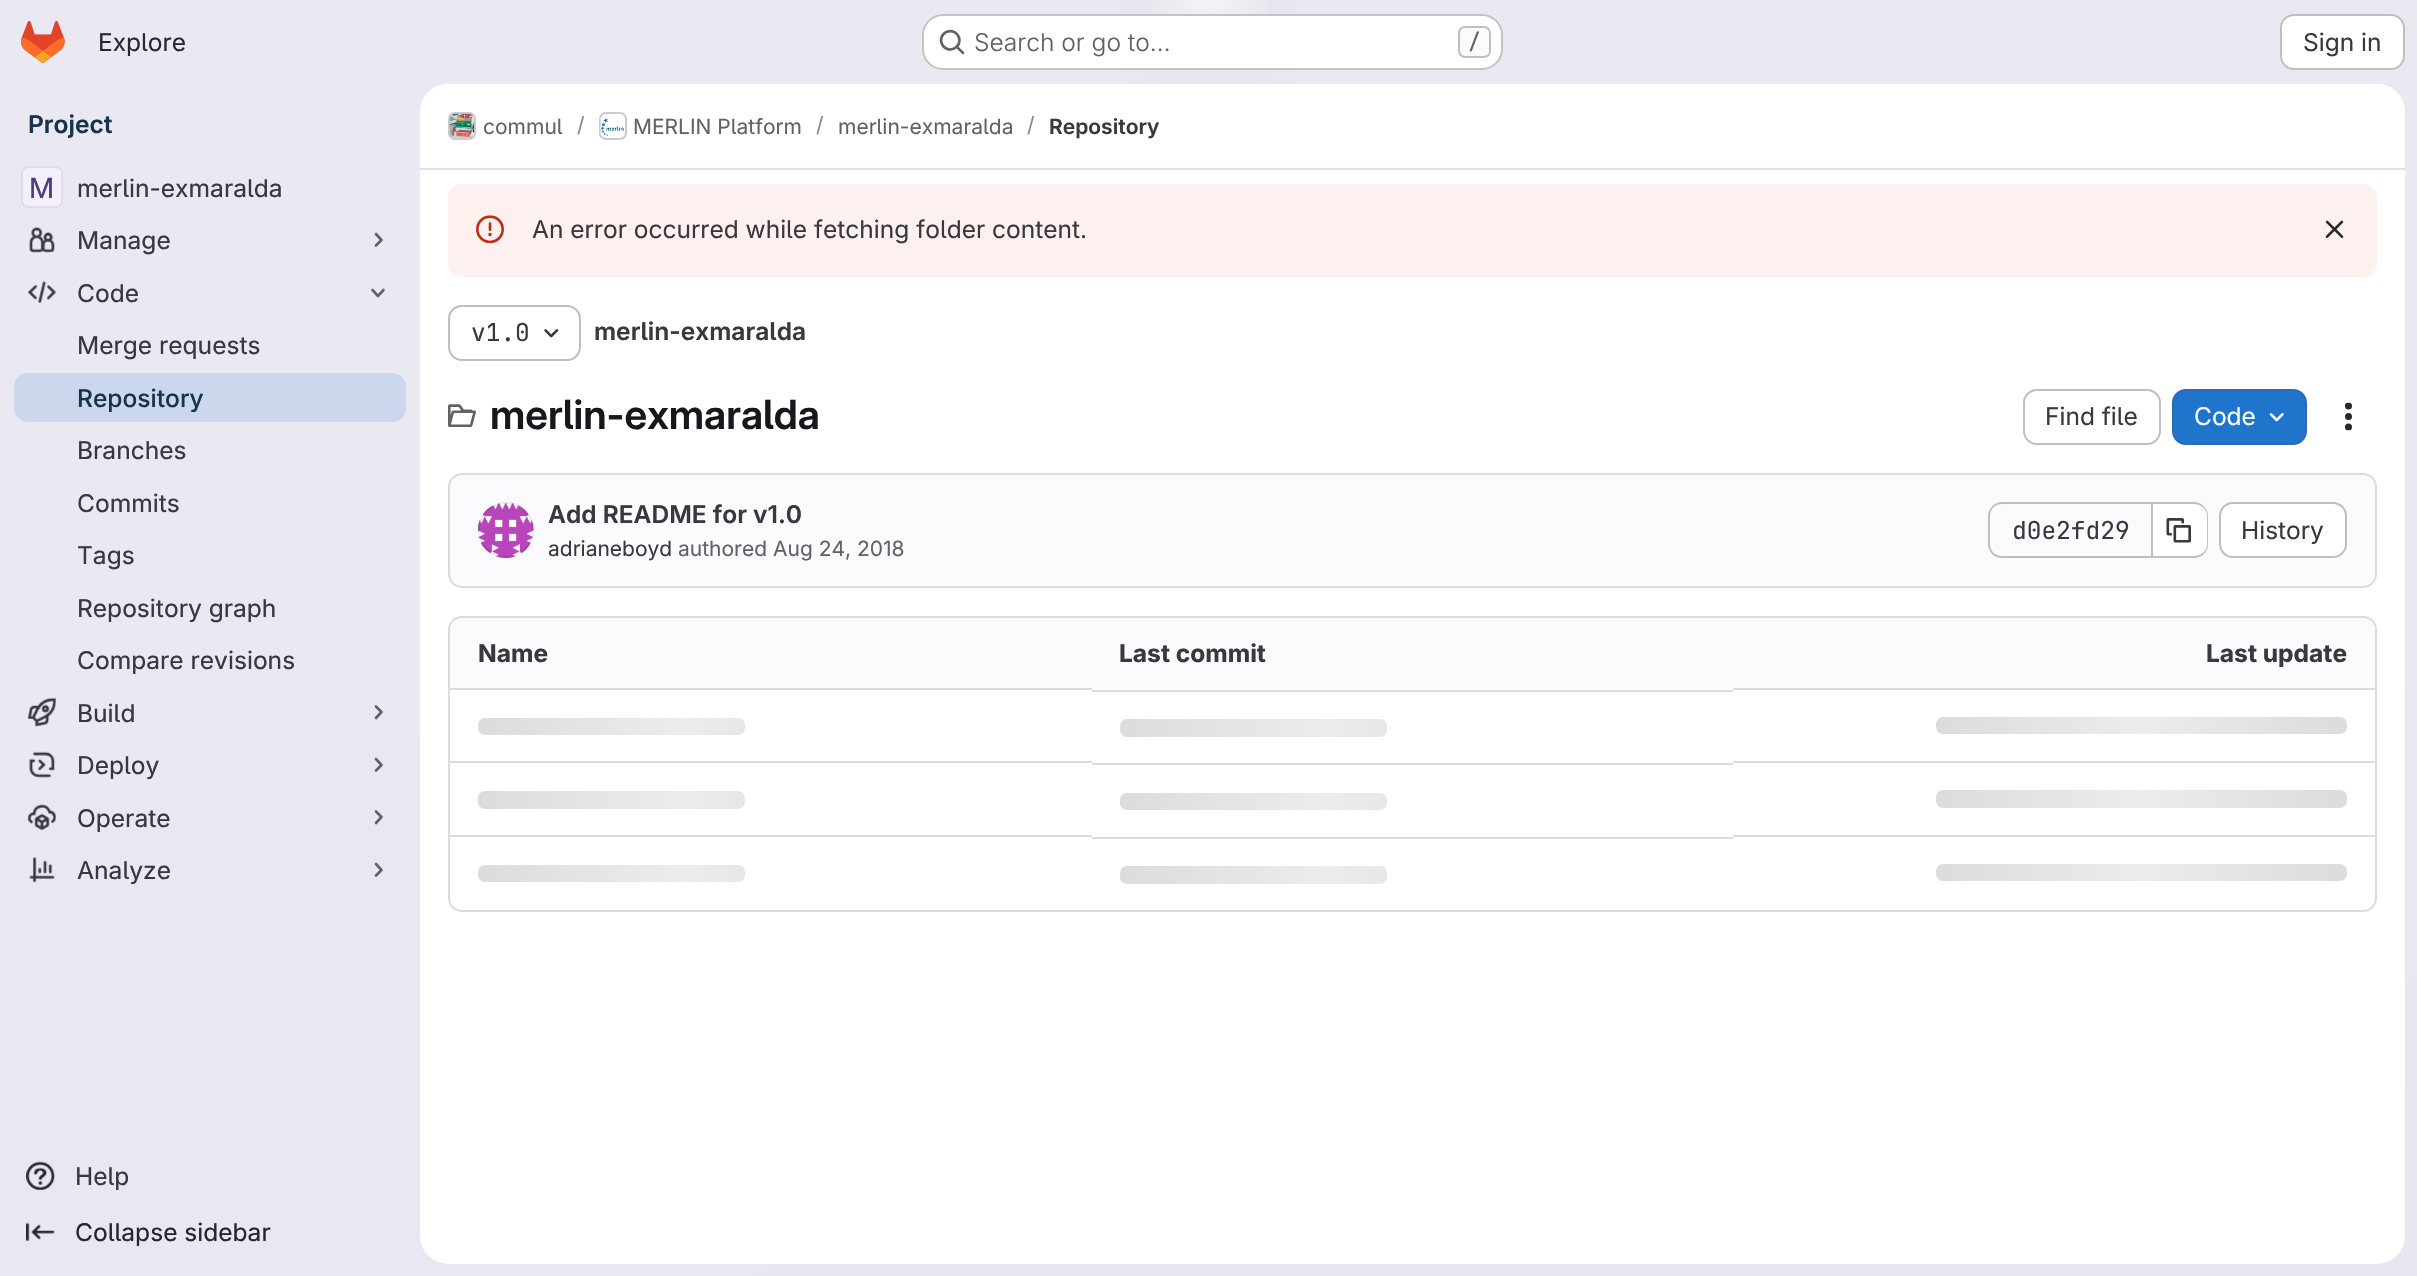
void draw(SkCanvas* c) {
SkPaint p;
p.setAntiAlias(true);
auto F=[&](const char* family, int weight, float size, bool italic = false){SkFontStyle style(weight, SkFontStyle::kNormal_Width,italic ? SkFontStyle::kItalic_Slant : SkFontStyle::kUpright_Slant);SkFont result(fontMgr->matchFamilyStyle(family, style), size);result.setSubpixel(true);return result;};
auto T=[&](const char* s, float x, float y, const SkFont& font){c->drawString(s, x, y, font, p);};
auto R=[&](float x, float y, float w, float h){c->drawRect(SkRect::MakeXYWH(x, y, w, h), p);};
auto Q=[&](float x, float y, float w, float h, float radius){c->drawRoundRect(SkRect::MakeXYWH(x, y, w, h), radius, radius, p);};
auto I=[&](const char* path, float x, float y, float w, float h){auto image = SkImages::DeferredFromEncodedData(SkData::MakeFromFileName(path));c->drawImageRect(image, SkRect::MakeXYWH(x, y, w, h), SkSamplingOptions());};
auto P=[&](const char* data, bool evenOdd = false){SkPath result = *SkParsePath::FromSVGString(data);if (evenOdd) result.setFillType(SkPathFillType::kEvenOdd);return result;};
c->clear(0xffffffff);
{
const SkColor colors[] = {0xffe8e6f0,0xffeae9f2};
const float stops[] = {0,.7};
const SkPoint ends[] = {{1355,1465}, {1064,-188}};
p.setShader(SkGradientShader::MakeLinear(ends, colors, stops, 2, SkTileMode::kClamp));
p.setAlpha(255);
}
R(0,0,2417,1276);
{
const SkColor colors[] = {0xffe4e2ed,0x00e4e2ed};
const float stops[] = {0,.1};
SkMatrix m = SkMatrix::Translate(1209,0).preScale(1209,1278);
p.setShader(SkGradientShader::MakeRadial({0, 0}, 1, colors, stops, 2, SkTileMode::kClamp, 0, &m));
p.setAlpha(255);
}
R(1122,0,174,84);
{
const SkColor colors[] = {0xffe4e2ec,0x00e4e2ec};
const float stops[] = {0,.07};
SkMatrix m = SkMatrix::Translate(1209,0).preScale(1209,1278);
p.setShader(SkGradientShader::MakeRadial({0, 0}, 1, colors, stops, 2, SkTileMode::kClamp, 0, &m));
p.setAlpha(255);
}
R(1174,3,70,32);
{
const SkColor colors[] = {0x99ffffff,0x00ffffff};
const float stops[] = {0,.04};
p.setShader(SkGradientShader::MakeRadial({1209,0}, 1759, colors, stops, 2, SkTileMode::kClamp));
p.setAlpha(255);
}
R(1150,0,118,14);
I("1.png",21,21,44,42);
auto f1 = F("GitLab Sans",400,24.5);
p.setShader(nullptr);
p.setColor(0xff28272d);
T("Explore",98,51,f1);
p.setColor(0xffffffff);
Q(922,14,581,56,21);
p.setStroke(true);
p.setStrokeWidth(2);
p.setColor(0x3d050506);
c->drawRoundRect(SkRect::MakeXYWH(923,15,579,54),20,20,p);
I("2.png",939,29,26,26);
auto f2 = F("GitLab Sans",300,24.5);
p.setStroke(false);
p.setColor(0xff626168);
T("Search or go to…",974,51,f2);
p.setColor(0xfffbfafd);
c->drawRoundRect(SkRect::MakeXYWH(1459,27,31,30),6,6,p);
p.setStroke(true);
p.setColor(0xffbfbfc3);
c->drawRoundRect(SkRect::MakeXYWH(1459,27,31,30),6,6,p);
auto f3 = F("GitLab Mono",500,21);
p.setStroke(false);
p.setColor(0xff626168);
T("/",1468,49,f3);
p.setColor(0xffffffff);
c->drawRoundRect(SkRect::MakeXYWH(2281,15,123,54),13,13,p);
p.setStroke(true);
p.setColor(0xffbfbfc3);
c->drawRoundRect(SkRect::MakeXYWH(2281,15,123,54),13,13,p);
p.setStroke(false);
p.setColor(0xff3a383f);
T("Sign in",2303,51,f1);
auto f4 = F("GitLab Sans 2",600,24.5);
p.setColor(0xff18334e);
T("Project",28,133,f4);
p.setColor(0xffffffff);
Q(21,166,42,42,7);
p.setColor(0x3dcbbbf2);
Q(21,166,42,42,7);
p.setStroke(true);
p.setColor(0x14050506);
c->drawRoundRect(SkRect::MakeXYWH(22,167,40,40),6,6,p);
auto f5 = F("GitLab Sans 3",400,28);
p.setStroke(false);
p.setColor(0xff493c83);
T("M",29,198,f5);
auto f6 = F("GitLab Sans 2",400,24.5);
p.setColor(0xff3a383f);
T("merlin-exmaralda",77,197,f6);
I("3.png",29,226,26,27);
T("Manage",77,249,f6);
p.setStroke(true);
p.setStrokeWidth(2.6);
p.setStrokeCap(SkPaint::kRound_Cap);
p.setStrokeJoin(SkPaint::kRound_Join);
p.setColor(0xff626168);
c->drawPath(P("M376 234l5.5 6l-5.5 5.5"),p);
I("4.png",28,281,28,22);
p.setStroke(false);
p.setColor(0xff3a383f);
T("Code",77,302,f6);
p.setStroke(true);
p.setColor(0xff626168);
c->drawPath(P("M383.5 290l-5.5 6l-5.5-6"),p);
p.setStroke(false);
p.setColor(0xff3a383f);
T("Merge requests",77,354,f6);
p.setColor(0xffcad7ec);
Q(14,373,392,49,14);
auto f7 = F("GitLab Sans",500,24.5);
p.setColor(0xff18334e);
T("Repository",77,407,f7);
p.setColor(0xff3a383f);
T("Branches",77,459,f6);
T("Commits",77,512,f6);
T("Tags",77,564,f6);
T("Repository graph",77,617,f6);
T("Compare revisions",77,669,f6);
I("5.png",28,697,28,30);
T("Build",77,722,f6);
p.setStroke(true);
p.setColor(0xff626168);
c->drawPath(P("M376 706.5l5.5 5.5l-5.5 6"),p);
I("6.png",29,751,26,27);
p.setStroke(false);
p.setColor(0xff3a383f);
T("Deploy",77,774,f6);
p.setStroke(true);
p.setColor(0xff626168);
c->drawPath(P("M376 759l5.5 6l-5.5 5.5"),p);
I("7.png",27,804,29,26);
p.setStroke(false);
p.setColor(0xff3a383f);
T("Operate",77,827,f6);
p.setStroke(true);
p.setColor(0xff626168);
c->drawPath(P("M376 811.5l5.5 5.5l-5.5 6"),p);
I("8.png",29,856,26,27);
p.setStroke(false);
p.setColor(0xff3a383f);
T("Analyze",77,879,f6);
p.setStroke(true);
p.setColor(0xff626168);
c->drawPath(P("M376 864l5.5 6l-5.5 5.5"),p);
I("9.png",26,1161,29,30);
p.setStroke(false);
p.setColor(0xff3a383f);
T("Help",75,1185,f6);
I("10.png",26,1222,29,19);
p.setColor(0xff28272d);
T("Collapse sidebar",75,1241,f6);
p.setColor(0xffffffff);
Q(420,84,1985,1180,28);
c->drawPath(P("M448 84h1929c15.5 0 28 12.5 28 28v58h-1985v-58c0-15.5 12.5-28 28-28z"),p);
p.setColor(0xffe1dfec);
R(420,168,1985,2);
p.setStroke(true);
p.setStrokeWidth(2);
p.setStrokeCap(SkPaint::kButt_Cap);
p.setStrokeJoin(SkPaint::kMiter_Join);
p.setColor(0xffdcdcde);
c->drawRoundRect(SkRect::MakeXYWH(449,113,26,26),6,6,p);
I("11.png",449,113,26,25);
p.setColor(0x14050506);
c->drawRoundRect(SkRect::MakeXYWH(449,113,26,26),6,6,p);
auto f8 = F("GitLab Sans",400,21);
p.setStroke(false);
p.setColor(0xff626168);
T("commul",483,134,f8);
p.setColor(0xff89888d);
T("/",577,132,f8);
p.setStroke(true);
p.setColor(0xffdcdcde);
c->drawRoundRect(SkRect::MakeXYWH(600,113,26,26),6,6,p);
I("12.png",600,117,24,20);
p.setColor(0x14050506);
c->drawRoundRect(SkRect::MakeXYWH(600,113,26,26),6,6,p);
p.setStroke(false);
p.setColor(0xff626168);
T("MERLIN Platform",633,134,f8);
p.setColor(0xff89888d);
T("/",816,132,f8);
p.setColor(0xff626168);
T("merlin-exmaralda",838,134,f8);
p.setColor(0xff89888d);
T("/",1027,132,f8);
auto f9 = F("GitLab Sans 2",600,21);
p.setColor(0xff3a383f);
T("Repository",1049,134,f9);
p.setColor(0xfffcf1ef);
Q(448,184,1929,93,14);
I("13.png",476,215,28,29);
p.setColor(0xff3a383f);
T("An error occurred while fetching folder content.",532,238,f1);
I("14.png",2325,220,19,18);
p.setStroke(true);
p.setColor(0xffbfbfc3);
c->drawRoundRect(SkRect::MakeXYWH(449,306,131,54),13,13,p);
auto f10 = F("GitLab Mono",400,24.5);
p.setStroke(false);
p.setColor(0xff3a383f);
T("v1.0",471,341,f10);
I("15.png",544,329,15,9);
T("merlin-exmaralda",594,340,f4);
I("16.png",448,404,28,23);
auto f11 = F("GitLab Sans",600,40.25);
p.setColor(0xff18171d);
T("merlin-exmaralda",490,429,f11);
p.setStroke(true);
p.setColor(0xffbfbfc3);
c->drawRoundRect(SkRect::MakeXYWH(2024,390,136,54),13,13,p);
p.setStroke(false);
p.setColor(0xff3a383f);
T("Find file",2045,425,f1);
p.setColor(0xff1f75cb);
c->drawRoundRect(SkRect::MakeXYWH(2173,390,133,54),13,13,p);
p.setStroke(true);
p.setColor(0xff2f68b4);
c->drawRoundRect(SkRect::MakeXYWH(2173,390,133,54),13,13,p);
p.setStroke(false);
p.setColor(0xffffffff);
T("Code",2194,425,f1);
I("17.png",2269,413,15,9);
I("18.png",2345,402,7,29);
p.setColor(0xfffbfafd);
c->drawRoundRect(SkRect::MakeXYWH(449,474,1927,113),13,13,p);
p.setStroke(true);
p.setColor(0xffdcdcde);
c->drawRoundRect(SkRect::MakeXYWH(449,474,1927,113),13,13,p);
I("19.png",477,503,57,56);
p.setColor(0x14050506);
c->drawCircle(506,530,27,p);
p.setStroke(false);
p.setColor(0xff3a383f);
T("Add README for v1.0",548,523,f4);
T("adrianeboyd",548,556,f8);
p.setColor(0xff626168);
T("authored Aug 24, 2018",678,556,f8);
p.setColor(0xffbfbfc3);
c->drawPath(P("M2002 502h149v56h-149c-8 0-14-6-14-14v-28c0-7 6-14 14-14zm0 2h149v52h-149c-7 0-12-5-12-12v-28c0-7 5-12 12-12z",true),p);
p.setColor(0xff3a383f);
T("d0e2fd29",2012,539,f10);
p.setColor(0xffffffff);
c->drawPath(P("M2153 504h42c6.5 0 12 5.5 12 12v29c0 6.5-5.5 12-12 12h-42z"),p);
p.setColor(0xffbfbfc3);
c->drawPath(P("M2152 502h42c8 0 14 7 14 14v28c0 8-6 14-14 14h-42zm0 2h42c7 0 13 5 13 12v28c0 7-6 12-13 12h-42z",true),p);
R(2151,502,2,56);
I("20.png",2166,518,25,25);
p.setColor(0xffffffff);
c->drawRoundRect(SkRect::MakeXYWH(2220,503,126,54),13,13,p);
p.setStroke(true);
p.setColor(0xffbfbfc3);
c->drawRoundRect(SkRect::MakeXYWH(2220,503,126,54),13,13,p);
p.setStroke(false);
p.setColor(0xff3a383f);
T("History",2241,539,f1);
p.setStroke(true);
p.setColor(0xffdcdcde);
c->drawRoundRect(SkRect::MakeXYWH(449,617,1927,294),13,13,p);
p.setStroke(false);
p.setColor(0xfffbfafd);
c->drawPath(P("M462 618h630v72h-642v-60c0-6.5 5.5-12 12-12z"),p);
auto f12 = F("GitLab Sans",700,24.5);
p.setColor(0xff3a383f);
T("Name",478,662,f12);
p.setColor(0xfffbfafd);
R(1092,618,641,72);
p.setColor(0xff3a383f);
T("Last commit",1119,662,f12);
p.setColor(0xfffbfafd);
c->drawPath(P("M1733 618h630c6.5 0 12 5.5 12 12v60h-642z"),p);
p.setColor(0xff3a383f);
T("Last update",2206,662,f12);
p.setColor(0xffdcdcde);
R(450,688,642,2);
{
const SkColor colors[] = {0xffdcdcde,0xffececef,0xffdcdcde};
const float stops[] = {0,.5,1};
const SkPoint ends[] = {{478,718}, {889,718}};
p.setShader(SkGradientShader::MakeLinear(ends, colors, stops, 3, SkTileMode::kClamp));
p.setAlpha(255);
}
Q(478,718,267,17,7);
p.setShader(nullptr);
p.setColor(0xffdcdcde);
R(1092,690,641,2);
{
const SkColor colors[] = {0xffdcdcde,0xffececef,0xffdcdcde};
const float stops[] = {0,.5,1};
const SkPoint ends[] = {{1120,719}, {1531,719}};
p.setShader(SkGradientShader::MakeLinear(ends, colors, stops, 3, SkTileMode::kClamp));
p.setAlpha(255);
}
Q(1120,719,267,18,7);
p.setShader(nullptr);
p.setColor(0xffdcdcde);
R(1733,688,642,2);
{
const SkColor colors[] = {0xffdcdcde,0xffececef,0xffdcdcde};
const float stops[] = {0,.5,1};
const SkPoint ends[] = {{1936,717}, {2347,717}};
p.setShader(SkGradientShader::MakeLinear(ends, colors, stops, 3, SkTileMode::kClamp));
p.setAlpha(255);
}
Q(1936,717,411,17,7);
p.setShader(nullptr);
p.setColor(0xffdcdcde);
R(450,761,642,2);
{
const SkColor colors[] = {0xffdcdcde,0xffececef,0xffdcdcde};
const float stops[] = {0,.5,1};
const SkPoint ends[] = {{478,791}, {889,791}};
p.setShader(SkGradientShader::MakeLinear(ends, colors, stops, 3, SkTileMode::kClamp));
p.setAlpha(255);
}
Q(478,791,267,18,7);
p.setShader(nullptr);
p.setColor(0xffdcdcde);
R(1092,763,641,2);
{
const SkColor colors[] = {0xffdcdcde,0xffececef,0xffdcdcde};
const float stops[] = {0,.5,1};
const SkPoint ends[] = {{1120,793}, {1531,793}};
p.setShader(SkGradientShader::MakeLinear(ends, colors, stops, 3, SkTileMode::kClamp));
p.setAlpha(255);
}
Q(1120,793,267,17,7);
p.setShader(nullptr);
p.setColor(0xffdcdcde);
R(1733,761,642,2);
{
const SkColor colors[] = {0xffdcdcde,0xffececef,0xffdcdcde};
const float stops[] = {0,.5,1};
const SkPoint ends[] = {{1936,790}, {2347,790}};
p.setShader(SkGradientShader::MakeLinear(ends, colors, stops, 3, SkTileMode::kClamp));
p.setAlpha(255);
}
Q(1936,790,411,18,7);
p.setShader(nullptr);
p.setColor(0xffdcdcde);
R(450,835,642,2);
{
const SkColor colors[] = {0xffdcdcde,0xffececef,0xffdcdcde};
const float stops[] = {0,.5,1};
const SkPoint ends[] = {{478,865}, {889,865}};
p.setShader(SkGradientShader::MakeLinear(ends, colors, stops, 3, SkTileMode::kClamp));
p.setAlpha(255);
}
Q(478,865,267,17,7);
p.setShader(nullptr);
p.setColor(0xffdcdcde);
R(1092,837,641,2);
{
const SkColor colors[] = {0xffdcdcde,0xffececef,0xffdcdcde};
const float stops[] = {0,.5,1};
const SkPoint ends[] = {{1120,866}, {1531,866}};
p.setShader(SkGradientShader::MakeLinear(ends, colors, stops, 3, SkTileMode::kClamp));
p.setAlpha(255);
}
Q(1120,866,267,18,7);
p.setShader(nullptr);
p.setColor(0xffdcdcde);
R(1733,835,642,2);
{
const SkColor colors[] = {0xffdcdcde,0xffececef,0xffdcdcde};
const float stops[] = {0,.5,1};
const SkPoint ends[] = {{1936,864}, {2347,864}};
p.setShader(SkGradientShader::MakeLinear(ends, colors, stops, 3, SkTileMode::kClamp));
p.setAlpha(255);
}
Q(1936,864,411,17,7);
}
